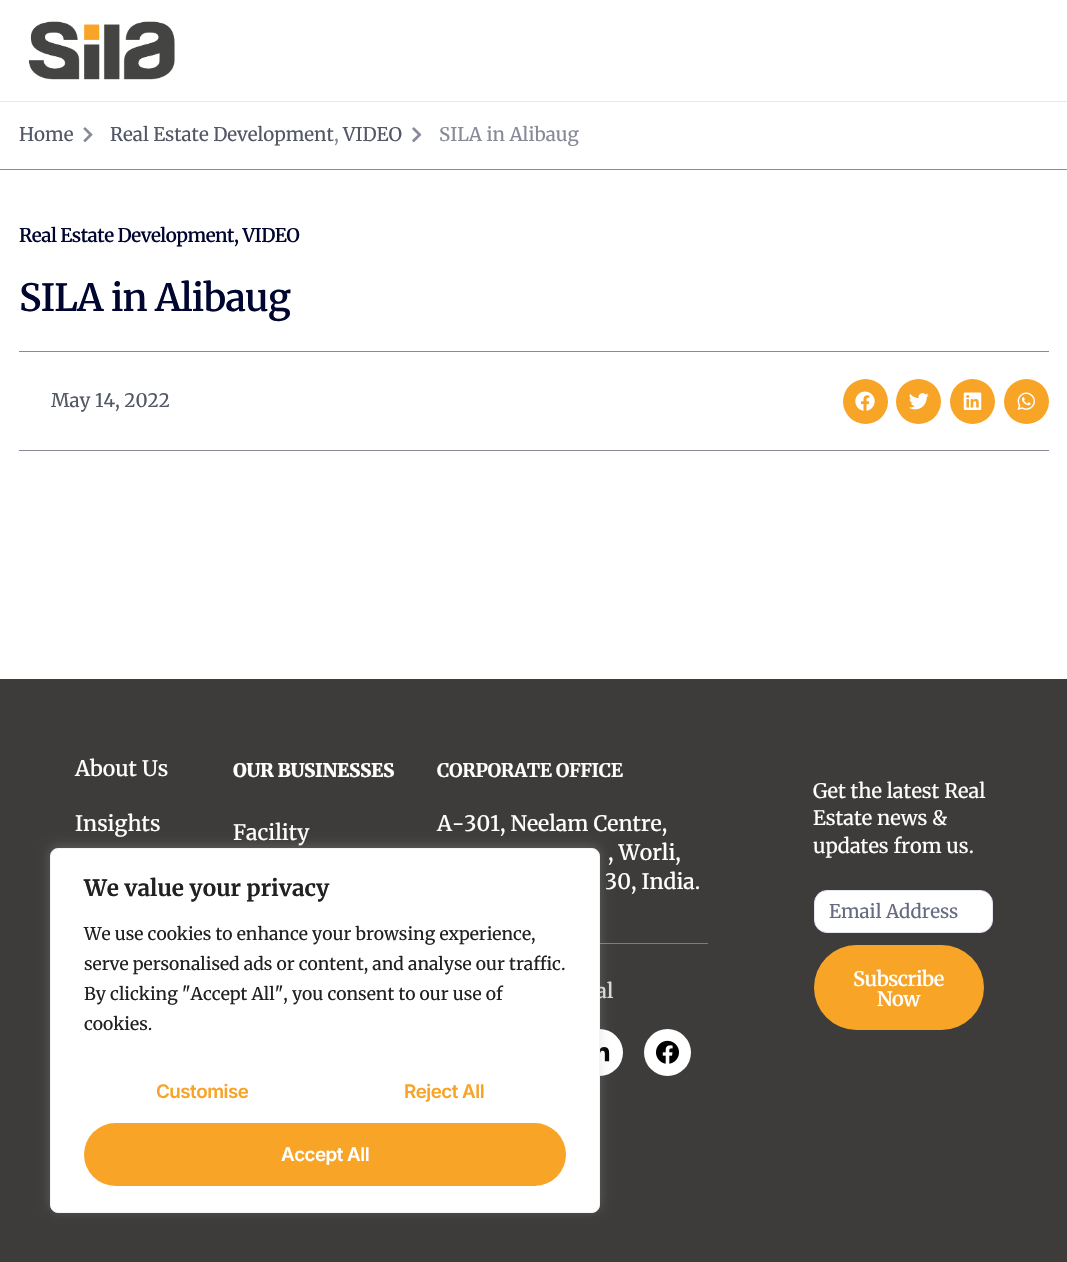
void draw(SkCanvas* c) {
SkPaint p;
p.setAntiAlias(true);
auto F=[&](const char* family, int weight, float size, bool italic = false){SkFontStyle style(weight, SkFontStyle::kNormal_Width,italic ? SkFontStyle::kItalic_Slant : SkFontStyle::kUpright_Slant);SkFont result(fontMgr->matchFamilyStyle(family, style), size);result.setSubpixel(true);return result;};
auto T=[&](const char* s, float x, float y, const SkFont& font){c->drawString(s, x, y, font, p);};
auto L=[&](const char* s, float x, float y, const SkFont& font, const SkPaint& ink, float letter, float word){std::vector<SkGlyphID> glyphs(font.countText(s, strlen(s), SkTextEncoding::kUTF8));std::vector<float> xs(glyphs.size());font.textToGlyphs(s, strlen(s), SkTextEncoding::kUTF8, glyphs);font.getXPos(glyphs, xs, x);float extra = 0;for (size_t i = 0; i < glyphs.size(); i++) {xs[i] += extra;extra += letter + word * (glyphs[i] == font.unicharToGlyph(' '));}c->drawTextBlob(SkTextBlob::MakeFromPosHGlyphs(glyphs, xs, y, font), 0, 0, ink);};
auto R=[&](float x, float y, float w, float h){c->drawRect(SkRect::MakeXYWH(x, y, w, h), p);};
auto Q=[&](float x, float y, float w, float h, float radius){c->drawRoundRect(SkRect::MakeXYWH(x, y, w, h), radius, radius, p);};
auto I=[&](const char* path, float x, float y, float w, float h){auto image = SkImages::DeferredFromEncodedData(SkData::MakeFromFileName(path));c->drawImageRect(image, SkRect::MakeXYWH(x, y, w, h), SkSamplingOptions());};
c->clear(0xffffffff);
p.setColor(0xffe8e8e8);
R(0,101,1067,1);
I("1.png",28,21,147,59);
p.setColor(0xff878b99);
R(0,169,1067,1);
auto f1 = F("Merriweather",400,18.75);
p.setColor(0xff535866);
T("Home",19,141,f1);
I("2.png",83,127,10,15);
T("Real Estate Development",110,141,f1);
p.setColor(0xff878b99);
T(",",334,141,f1);
p.setColor(0xff535866);
T("VIDEO",343,141,f1);
I("3.png",412,127,10,16);
p.setColor(0xff878b99);
T("SILA in Alibaug",439,141,f1);
auto f2 = F("Merriweather",600,18.75);
p.setColor(0xff010630);
L("Real Estate Development, VIDEO",19,242,f2,p,-.5,0);
auto f3 = F("Merriweather",600,37.5);
L("SILA in Alibaug",19,311,f3,p,-.75,0);
p.setColor(0xff878b99);
R(19,351,1030,1);
R(19,450,1030,1);
p.setColor(0xff535866);
T("May 14, 2022",51,407,f1);
p.setColor(0xfff7a427);
c->drawCircle(865.5,401.5,22.5,p);
I("4.png",855,391,20,20);
c->drawCircle(918.5,401.5,22.5,p);
I("5.png",909,393,20,17);
c->drawCircle(972.5,401.5,22.5,p);
I("6.png",963,392,19,18);
c->drawCircle(1026.5,401.5,22.5,p);
I("7.png",1017,392,18,18);
p.setColor(0xff3d3c3b);
R(0,679,1067,583);
auto f4 = F("Merriweather",500,21.25);
p.setColor(0xffffffff);
T("About Us",75,776,f4);
T("Insights",75,831,f4);
auto f5 = F("Merriweather",900,18.75);
L("OUR BUSINESSES",233,777,f5,p,-.4,0);
T("Facility",233,840,f4);
auto f6 = F("Merriweather",700,18.75);
L("CORPORATE OFFICE",437,777,f6,p,-.4,0);
T("A-301, Neelam Centre,",437,831,f4);
T(", Worli,",608,860,f4);
T("30, India.",605,889,f4);
p.setColor(0xff807e7d);
R(600,943,108,1);
auto f7 = F("Merriweather",600,20);
p.setColor(0xffd9d9d8);
T("al",596,998,f7);
p.setColor(0xffffffff);
Q(575,1029,48,47,23.5);
I("8.png",600,1047,10,15);
c->drawCircle(667.5,1052.5,23.5,p);
I("9.png",656,1040,23,24);
auto f8 = F("Merriweather",400,20);
T("Get the latest Real",813,798,f8);
T("Estate news &",813,825,f8);
T("updates from us.",813,853,f8);
c->drawRoundRect(SkRect::MakeXYWH(814.5,890.5,178,42),12.5,12.5,p);
p.setStroke(true);
p.setStrokeWidth(1);
p.setColor(0xffe3e5ef);
c->drawRoundRect(SkRect::MakeXYWH(814.5,890.5,178,42),12.5,12.5,p);
p.setStroke(false);
p.setColor(0xff676a83);
T("Email Address",829,918,f1);
p.setColor(0xfff7a427);
Q(814,945,170,85,42.5);
p.setColor(0xffffffff);
L("Subscribe",853,986,f7,p,-.5,0);
L("Now",877,1006,f7,p,-.5,0);
p.setColor(0x4dacabab);
p.setMaskFilter(SkMaskFilter::MakeBlur(kNormal_SkBlurStyle, 6));
c->drawRoundRect(SkRect::MakeXYWH(50,846,550,365),8,8,p);
p.setMaskFilter(nullptr);
p.setColor(0xffffffff);
c->drawRoundRect(SkRect::MakeXYWH(50.5,848.5,549,364),7.5,7.5,p);
p.setStroke(true);
p.setColor(0xfff4f4f4);
c->drawRoundRect(SkRect::MakeXYWH(50.5,848.5,549,364),7.5,7.5,p);
auto f9 = F("Merriweather",700,22.5);
p.setStroke(false);
p.setColor(0xff212121);
T("We value your privacy",84,896,f9);
auto f10 = F("Merriweather",400,17.5);
T("We use cookies to enhance your browsing experience,",84,940,f10);
T("serve personalised ads or content, and analyse our traffic.",84,970,f10);
T("By clicking \"Accept All\", you consent to our use of",84,1000,f10);
T("cookies.",84,1030,f10);
auto f11 = F("Inter",600,18.75);
p.setColor(0xfff7a427);
L("Customise",156,1098,f11,p,-.5,0);
L("Reject All",404,1098,f11,p,-.5,0);
Q(84,1123,482,63,31.5);
p.setColor(0xffffffff);
L("Accept All",281,1161,f11,p,-.5,0);
}
